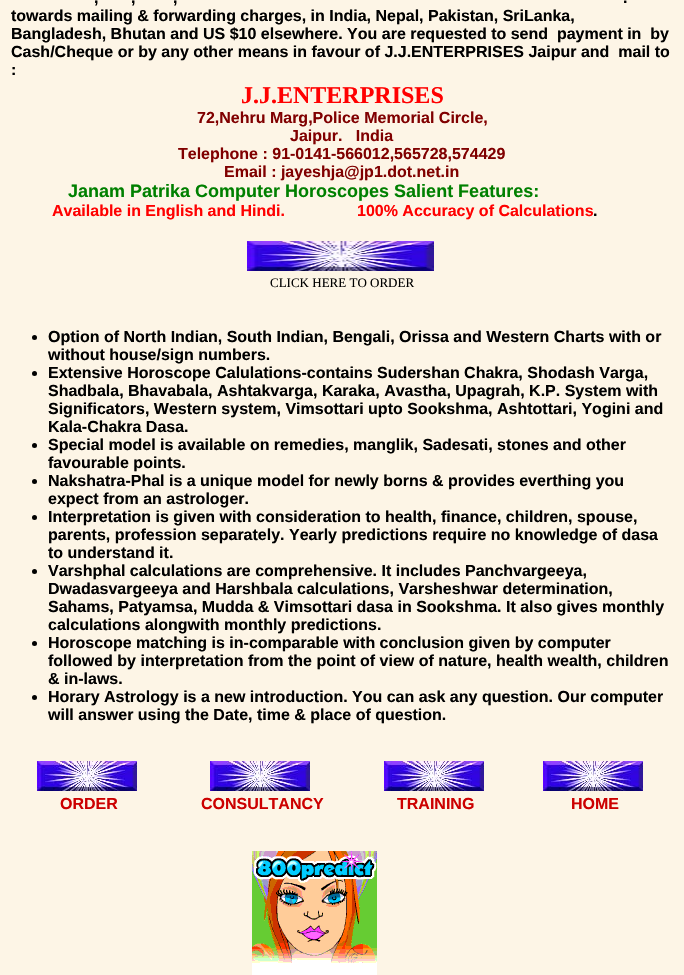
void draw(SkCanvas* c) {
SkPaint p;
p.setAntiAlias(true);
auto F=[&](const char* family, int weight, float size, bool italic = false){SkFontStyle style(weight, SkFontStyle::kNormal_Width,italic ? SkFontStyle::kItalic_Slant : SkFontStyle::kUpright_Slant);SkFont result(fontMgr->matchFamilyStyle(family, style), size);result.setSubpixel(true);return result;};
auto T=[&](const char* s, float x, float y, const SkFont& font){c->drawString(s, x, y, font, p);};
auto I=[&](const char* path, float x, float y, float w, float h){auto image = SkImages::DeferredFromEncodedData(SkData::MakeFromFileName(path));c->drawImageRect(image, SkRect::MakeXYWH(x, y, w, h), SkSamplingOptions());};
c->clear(0xfffdf5e6);
auto f1 = F("Liberation Sans",700,16);
p.setColor(0xff000000);
T(",",94,3,f1);
T(",",131,3,f1);
T(",",173,3,f1);
T(".",623,3,f1);
T("towards mailing & forwarding charges, in India, Nepal, Pakistan, SriLanka,",11,21,f1);
T("Bangladesh, Bhutan and US $10 elsewhere. You are requested to send  payment in  by",11,39,f1);
T("Cash/Cheque or by any other means in favour of J.J.ENTERPRISES Jaipur and  mail to",11,57,f1);
T(":",11,75,f1);
auto f2 = F("Liberation Serif",700,24);
p.setColor(0xffff0000);
T("J.J.ENTERPRISES",241,103,f2);
p.setColor(0xff800000);
T("72,Nehru Marg,Police Memorial Circle,",197,123,f1);
T("Jaipur.   India",290,141,f1);
T("Telephone : 91-0141-566012,565728,574429",178,159,f1);
T("Email : jayeshja@jp1.dot.net.in",224,177,f1);
auto f3 = F("Liberation Sans",700,18);
p.setColor(0xff008000);
T("Janam Patrika Computer Horoscopes Salient Features:",68,197,f3);
p.setColor(0xffff0000);
T("Available in English and Hindi.",52,216,f1);
T("100% Accuracy of Calculations",357,216,f1);
p.setColor(0xff000000);
T(".",593,216,f1);
I("1.png",247,241,187,30);
auto f4 = F("Liberation Serif",400,13);
T("CLICK HERE TO ORDER",270,287,f4);
c->drawCircle(34.5,337.5,2.5,p);
T("Option of North Indian, South Indian, Bengali, Orissa and Western Charts with or",48,342,f1);
T("without house/sign numbers.",48,360,f1);
c->drawCircle(34.5,373.5,2.5,p);
T("Extensive Horoscope Calulations-contains Sudershan Chakra, Shodash Varga,",48,378,f1);
T("Shadbala, Bhavabala, Ashtakvarga, Karaka, Avastha, Upagrah, K.P. System with",48,396,f1);
T("Significators, Western system, Vimsottari upto Sookshma, Ashtottari, Yogini and",48,414,f1);
T("Kala-Chakra Dasa.",48,432,f1);
c->drawCircle(34.5,445.5,2.5,p);
T("Special model is available on remedies, manglik, Sadesati, stones and other",48,450,f1);
T("favourable points.",48,468,f1);
c->drawCircle(34.5,481.5,2.5,p);
T("Nakshatra-Phal is a unique model for newly borns & provides everthing you",48,486,f1);
T("expect from an astrologer.",48,504,f1);
c->drawCircle(34.5,517.5,2.5,p);
T("Interpretation is given with consideration to health, finance, children, spouse,",48,522,f1);
T("parents, profession separately. Yearly predictions require no knowledge of dasa",48,540,f1);
T("to understand it.",48,558,f1);
c->drawCircle(34.5,571.5,2.5,p);
T("Varshphal calculations are comprehensive. It includes Panchvargeeya,",48,576,f1);
T("Dwadasvargeeya and Harshbala calculations, Varsheshwar determination,",48,594,f1);
T("Sahams, Patyamsa, Mudda & Vimsottari dasa in Sookshma. It also gives monthly",48,612,f1);
T("calculations alongwith monthly predictions.",48,630,f1);
c->drawCircle(34.5,643.5,2.5,p);
T("Horoscope matching is in-comparable with conclusion given by computer",48,648,f1);
T("followed by interpretation from the point of view of nature, health wealth, children",48,666,f1);
T("& in-laws.",48,684,f1);
c->drawCircle(34.5,697.5,2.5,p);
T("Horary Astrology is a new introduction. You can ask any question. Our computer",48,702,f1);
T("will answer using the Date, time & place of question.",48,720,f1);
I("2.png",37,761,100,30);
p.setColor(0xffcc0000);
T("ORDER",60,809,f1);
I("2.png",210,761,100,30);
T("CONSULTANCY",201,809,f1);
I("2.png",384,761,100,30);
T("TRAINING",397,809,f1);
I("2.png",543,761,100,30);
T("HOME",571,809,f1);
I("3.png",252,851,125,124);
}
